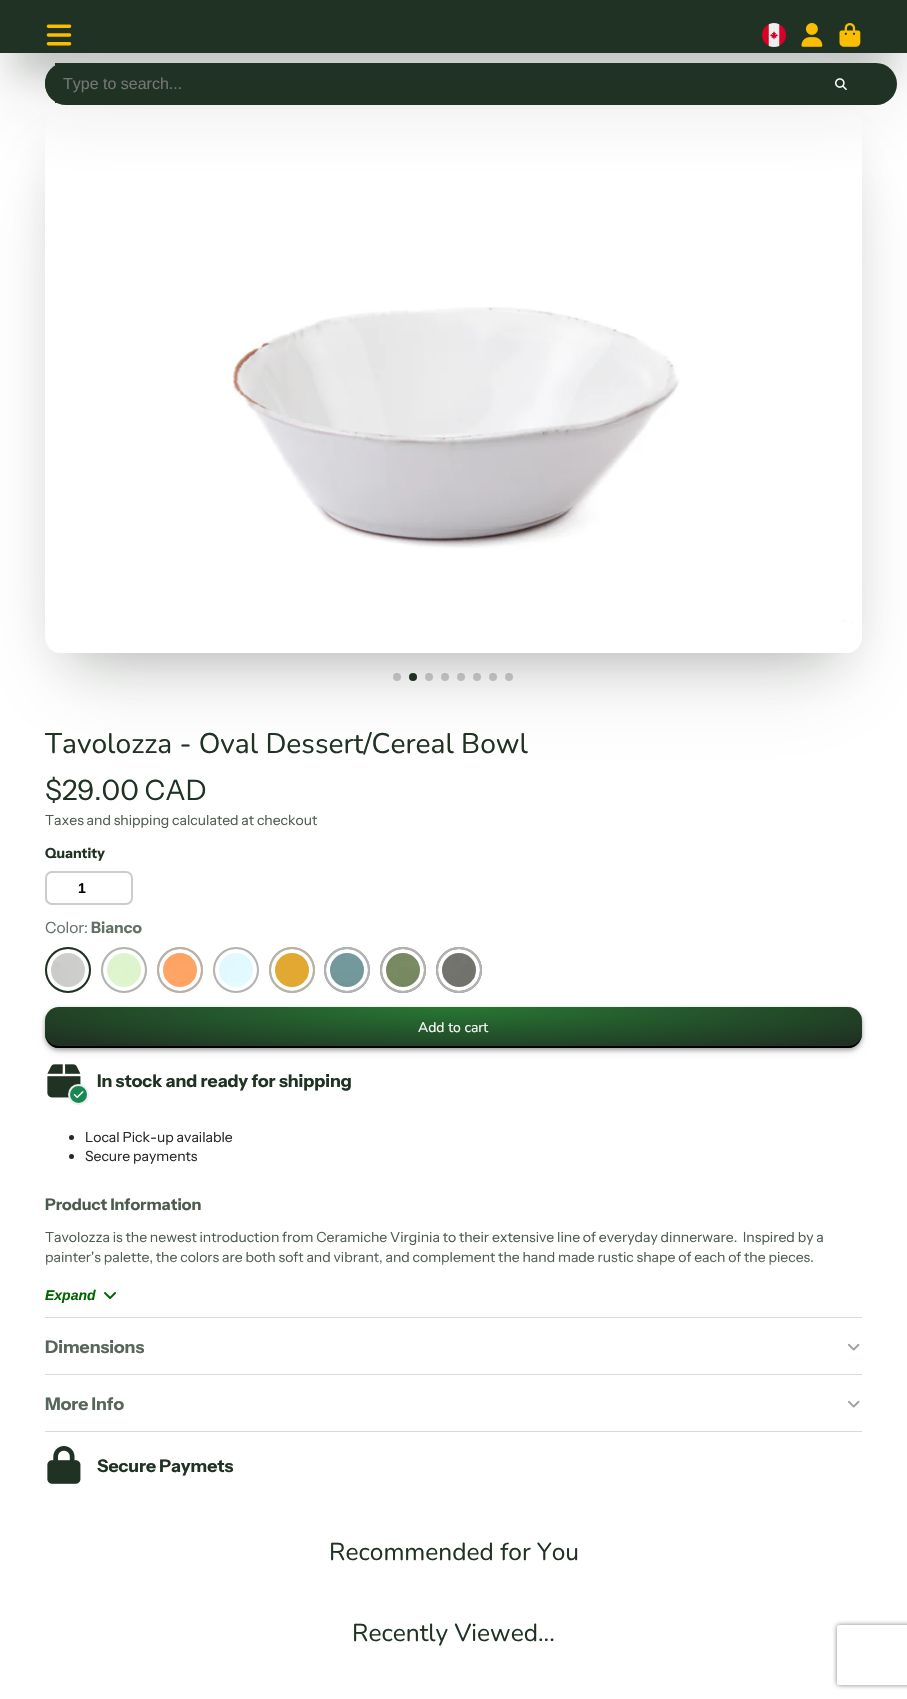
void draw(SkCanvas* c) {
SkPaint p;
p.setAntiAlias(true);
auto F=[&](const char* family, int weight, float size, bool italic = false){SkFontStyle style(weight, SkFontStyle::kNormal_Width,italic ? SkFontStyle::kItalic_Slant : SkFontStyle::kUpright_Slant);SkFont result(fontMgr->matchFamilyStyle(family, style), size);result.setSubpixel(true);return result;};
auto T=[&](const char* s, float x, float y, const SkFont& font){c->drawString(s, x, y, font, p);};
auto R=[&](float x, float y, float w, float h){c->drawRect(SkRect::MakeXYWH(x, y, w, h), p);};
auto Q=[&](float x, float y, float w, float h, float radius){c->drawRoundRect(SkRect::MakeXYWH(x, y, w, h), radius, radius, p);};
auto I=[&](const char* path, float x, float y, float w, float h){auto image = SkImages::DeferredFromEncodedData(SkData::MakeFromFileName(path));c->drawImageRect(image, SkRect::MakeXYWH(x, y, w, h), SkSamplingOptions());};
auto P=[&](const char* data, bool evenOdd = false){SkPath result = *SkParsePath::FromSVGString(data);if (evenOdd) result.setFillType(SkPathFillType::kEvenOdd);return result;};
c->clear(0xffffffff);
p.setColor(0xffcccccc);
c->drawCircle(397,677,4,p);
p.setColor(0xff203223);
c->drawCircle(413,677,4,p);
p.setColor(0xffcccccc);
c->drawCircle(429,677,4,p);
c->drawCircle(445,677,4,p);
c->drawCircle(461,677,4,p);
c->drawCircle(477,677,4,p);
c->drawCircle(493,677,4,p);
c->drawCircle(509,677,4,p);
p.setColor(0x4d162218);
p.setMaskFilter(SkMaskFilter::MakeBlur(kNormal_SkBlurStyle, 26));
c->drawRect(SkRect::MakeXYWH(71,162,765,491),p);
p.setMaskFilter(nullptr);
p.setColor(0x1a162218);
p.setMaskFilter(SkMaskFilter::MakeBlur(kNormal_SkBlurStyle, 44));
c->drawRect(SkRect::MakeXYWH(63,170,782,509),p);
p.setMaskFilter(nullptr);
c->save();
c->clipPath(P("M61 109h785c9 0 16 7 16 16v512c0 9-7 16-16 16h-785c-9 0-16-7-16-16v-512c0-9 7-16 16-16z"),true);
p.setColor(0xffffffff);
c->drawPath(P("M61 109h800v544h-800c-9 0-16-7-16-16v-512c0-9 7-16 16-16z"),p);
R(861,119,1,524);
c->restore();
p.setColor(0x66162218);
p.setMaskFilter(SkMaskFilter::MakeBlur(kNormal_SkBlurStyle, 19));
c->drawRect(SkRect::MakeXYWH(14,40,879,25),p);
p.setMaskFilter(nullptr);
p.setColor(0x4d162218);
p.setMaskFilter(SkMaskFilter::MakeBlur(kNormal_SkBlurStyle, 44));
c->drawRect(SkRect::MakeXYWH(14,58,879,25),p);
p.setMaskFilter(nullptr);
p.setColor(0xff203223);
R(0,0,907,53);
I("1.png",46,24,26,22);
I("2.png",762,23,24,24);
I("3.png",801,23,22,24);
I("4.png",839,23,22,24);
Q(45,63,817,40,20);
R(55,63,10,40);
Q(45,63,852,42,21);
auto f1 = F("Liberation Sans",400,16);
p.setColor(0xff757575);
T("Type to search...",63,89,f1);
I("5.png",835,78,12,12);
I("6.png",49,307,805,346);
auto f2 = F("Nunito",400,28.2);
p.setColor(0xff203223);
T("Tavolozza - Oval Dessert/Cereal Bowl",45,753,f2);
auto f3 = F("Instrument Sans",400,28);
T("$29.00 CAD",45,800,f3);
auto f4 = F("Instrument Sans",400,14);
p.setColor(0xff4d5b4f);
T("Taxes and shipping calculated at checkout",45,825,f4);
auto f5 = F("Instrument Sans",700,14);
p.setColor(0xff203223);
T("Quantity",45,858,f5);
p.setStroke(true);
p.setStrokeWidth(2);
p.setColor(0xffcccccc);
c->drawRoundRect(SkRect::MakeXYWH(46,872,86,32),6,6,p);
auto f6 = F("Liberation Sans",700,14);
p.setStroke(false);
p.setColor(0xff000000);
T("1",78,893,f6);
auto f7 = F("Instrument Sans",400,15.5);
p.setColor(0xff637065);
T("Color:",45,933,f7);
auto f8 = F("Instrument Sans",700,15.5);
T("Bianco",91,933,f8);
I("7.png",45,947,46,46);
p.setStroke(true);
p.setStrokeWidth(4);
p.setColor(0xffffffff);
c->drawCircle(68,970,19,p);
p.setStrokeWidth(2);
p.setColor(0xff203223);
c->drawCircle(68,970,22,p);
I("8.png",101,947,46,46);
p.setStrokeWidth(4);
p.setColor(0xffffffff);
c->drawCircle(124,970,19,p);
p.setStrokeWidth(2);
p.setColor(0xffb3b3b3);
c->drawCircle(124,970,22,p);
I("9.png",157,947,46,46);
p.setStrokeWidth(4);
p.setColor(0xffffffff);
c->drawCircle(180,970,19,p);
p.setStrokeWidth(2);
p.setColor(0xffb3b3b3);
c->drawCircle(180,970,22,p);
I("10.png",213,947,46,46);
p.setStrokeWidth(4);
p.setColor(0xffffffff);
c->drawCircle(236,970,19,p);
p.setStrokeWidth(2);
p.setColor(0xffb3b3b3);
c->drawCircle(236,970,22,p);
I("11.png",269,947,46,46);
p.setStrokeWidth(4);
p.setColor(0xffffffff);
c->drawCircle(292,970,19,p);
p.setStrokeWidth(2);
p.setColor(0xffb3b3b3);
c->drawCircle(292,970,22,p);
I("12.png",324,947,46,46);
p.setStrokeWidth(4);
p.setColor(0xffffffff);
c->drawCircle(347,970,19,p);
p.setStrokeWidth(2);
p.setColor(0xffb3b3b3);
c->drawCircle(347,970,22,p);
I("13.png",380,947,46,46);
p.setStrokeWidth(4);
p.setColor(0xffffffff);
c->drawCircle(403,970,19,p);
p.setStrokeWidth(2);
p.setColor(0xffb3b3b3);
c->drawCircle(403,970,22,p);
I("14.png",436,947,46,46);
p.setStrokeWidth(4);
p.setColor(0xffffffff);
c->drawCircle(459,970,19,p);
p.setStrokeWidth(2);
p.setColor(0xffb3b3b3);
c->drawCircle(459,970,22,p);
p.setStroke(false);
p.setColor(0x26000000);
p.setMaskFilter(SkMaskFilter::MakeBlur(kNormal_SkBlurStyle, 4));
c->drawRoundRect(SkRect::MakeXYWH(47,1013,813,37),12,12,p);
p.setMaskFilter(nullptr);
p.setColor(0x4d000000);
p.setMaskFilter(SkMaskFilter::MakeBlur(kNormal_SkBlurStyle, 2));
c->drawRoundRect(SkRect::MakeXYWH(45,1009,817,41),14,14,p);
p.setMaskFilter(nullptr);
c->save();
c->clipPath(P("M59 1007h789c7.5 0 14 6.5 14 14v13c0 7.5-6.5 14-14 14h-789c-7.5 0-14-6.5-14-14v-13c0-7.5 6.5-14 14-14z"),true);
p.setColor(0x26000000);
p.setMaskFilter(SkMaskFilter::MakeBlur(kNormal_SkBlurStyle, 4));
c->drawRoundRect(SkRect::MakeXYWH(47,1013,813,37),12,12,p);
p.setMaskFilter(nullptr);
p.setColor(0x4d000000);
p.setMaskFilter(SkMaskFilter::MakeBlur(kNormal_SkBlurStyle, 2));
c->drawRoundRect(SkRect::MakeXYWH(45,1009,817,41),14,14,p);
p.setMaskFilter(nullptr);
c->restore();
{
const SkColor colors[] = {0xff277834,0xff203223};
const float stops[] = {0,.9};
SkMatrix m = SkMatrix::Translate(454,1007).preScale(578,58);
p.setShader(SkGradientShader::MakeRadial({0, 0}, 1, colors, stops, 2, SkTileMode::kClamp, 0, &m));
p.setAlpha(255);
}
Q(45,1007,817,41,14);
p.setShader(nullptr);
p.setColor(0xff000000);
c->drawPath(P("M45 1032c0 8 5 16 14 16h789c9 0 14-8 14-16c0 8-6 14-14 14h-789c-8 0-14-6-14-14z"),p);
auto f9 = F("Nunito",400,14);
p.setColor(0xffffffff);
T("Add to cart",418,1032,f9);
I("15.png",47,1064,34,34);
p.setColor(0xff198754);
c->drawCircle(78.5,1094.5,9.5,p);
p.setStroke(true);
p.setColor(0xffededed);
c->drawCircle(78.5,1094.5,9.5,p);
I("16.png",73,1091,11,7);
auto f10 = F("Instrument Sans",700,17.5);
p.setStroke(false);
p.setColor(0xff203223);
T("In stock and ready for shipping",97,1087,f10);
p.setColor(0xff262626);
c->drawCircle(71.5,1137.5,2.5,p);
T("Local Pick-up available",85,1142,f4);
c->drawCircle(71.5,1156.5,2.5,p);
T("Secure payments",85,1161,f4);
auto f11 = F("Instrument Sans",700,16);
p.setColor(0xff4d5b4f);
T("Product Information",45,1210,f11);
T("Tavolozza is the newest introduction from Ceramiche Virginia to their extensive line of everyday dinnerware.  Inspired by a",45,1242,f4);
T("painter's palette, the colors are both soft and vibrant, and complement the hand made rustic shape of each of the pieces.",45,1262,f4);
{
const SkColor colors[] = {0xffffffff,0x00ffffff};
const float stops[] = {.35,1};
const SkPoint ends[] = {{454,1303}, {454,1259}};
p.setShader(SkGradientShader::MakeLinear(ends, colors, stops, 2, SkTileMode::kClamp));
p.setAlpha(255);
}
R(46,1260,767,5);
auto f12 = F("Liberation Sans",700,14,true);
p.setShader(nullptr);
p.setColor(0xff006400);
T("Expand",45,1300,f12);
I("17.png",104,1292,12,7);
p.setColor(0xffd9d9d9);
R(45,1317,817,1);
R(45,1374,817,1);
p.setColor(0xff58655a);
T("Dimensions",45,1353,f10);
I("18.png",848,1343,12,8);
p.setColor(0xffd9d9d9);
R(45,1431,817,1);
p.setColor(0xff58655a);
T("More Info",45,1410,f10);
I("18.png",848,1400,12,8);
I("19.png",47,1446,34,38);
p.setColor(0xff203223);
T("Secure Paymets",97,1472,f10);
auto f13 = F("Nunito",400,24.5);
T("Recommended for You",329,1560,f13);
T("Recently Viewed...",352,1641,f13);
c->save();
c->clipPath(P("M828 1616h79v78h-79zm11 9h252c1 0 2 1 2 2v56c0 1-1 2-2 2h-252c-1 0-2-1-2-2v-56c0-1 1-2 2-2z",true),true);
p.setColor(0xff808080);
p.setMaskFilter(SkMaskFilter::MakeBlur(kNormal_SkBlurStyle, 2.5));
c->drawRoundRect(SkRect::MakeXYWH(837,1625,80,60),2,2,p);
p.setMaskFilter(nullptr);
c->restore();
}
